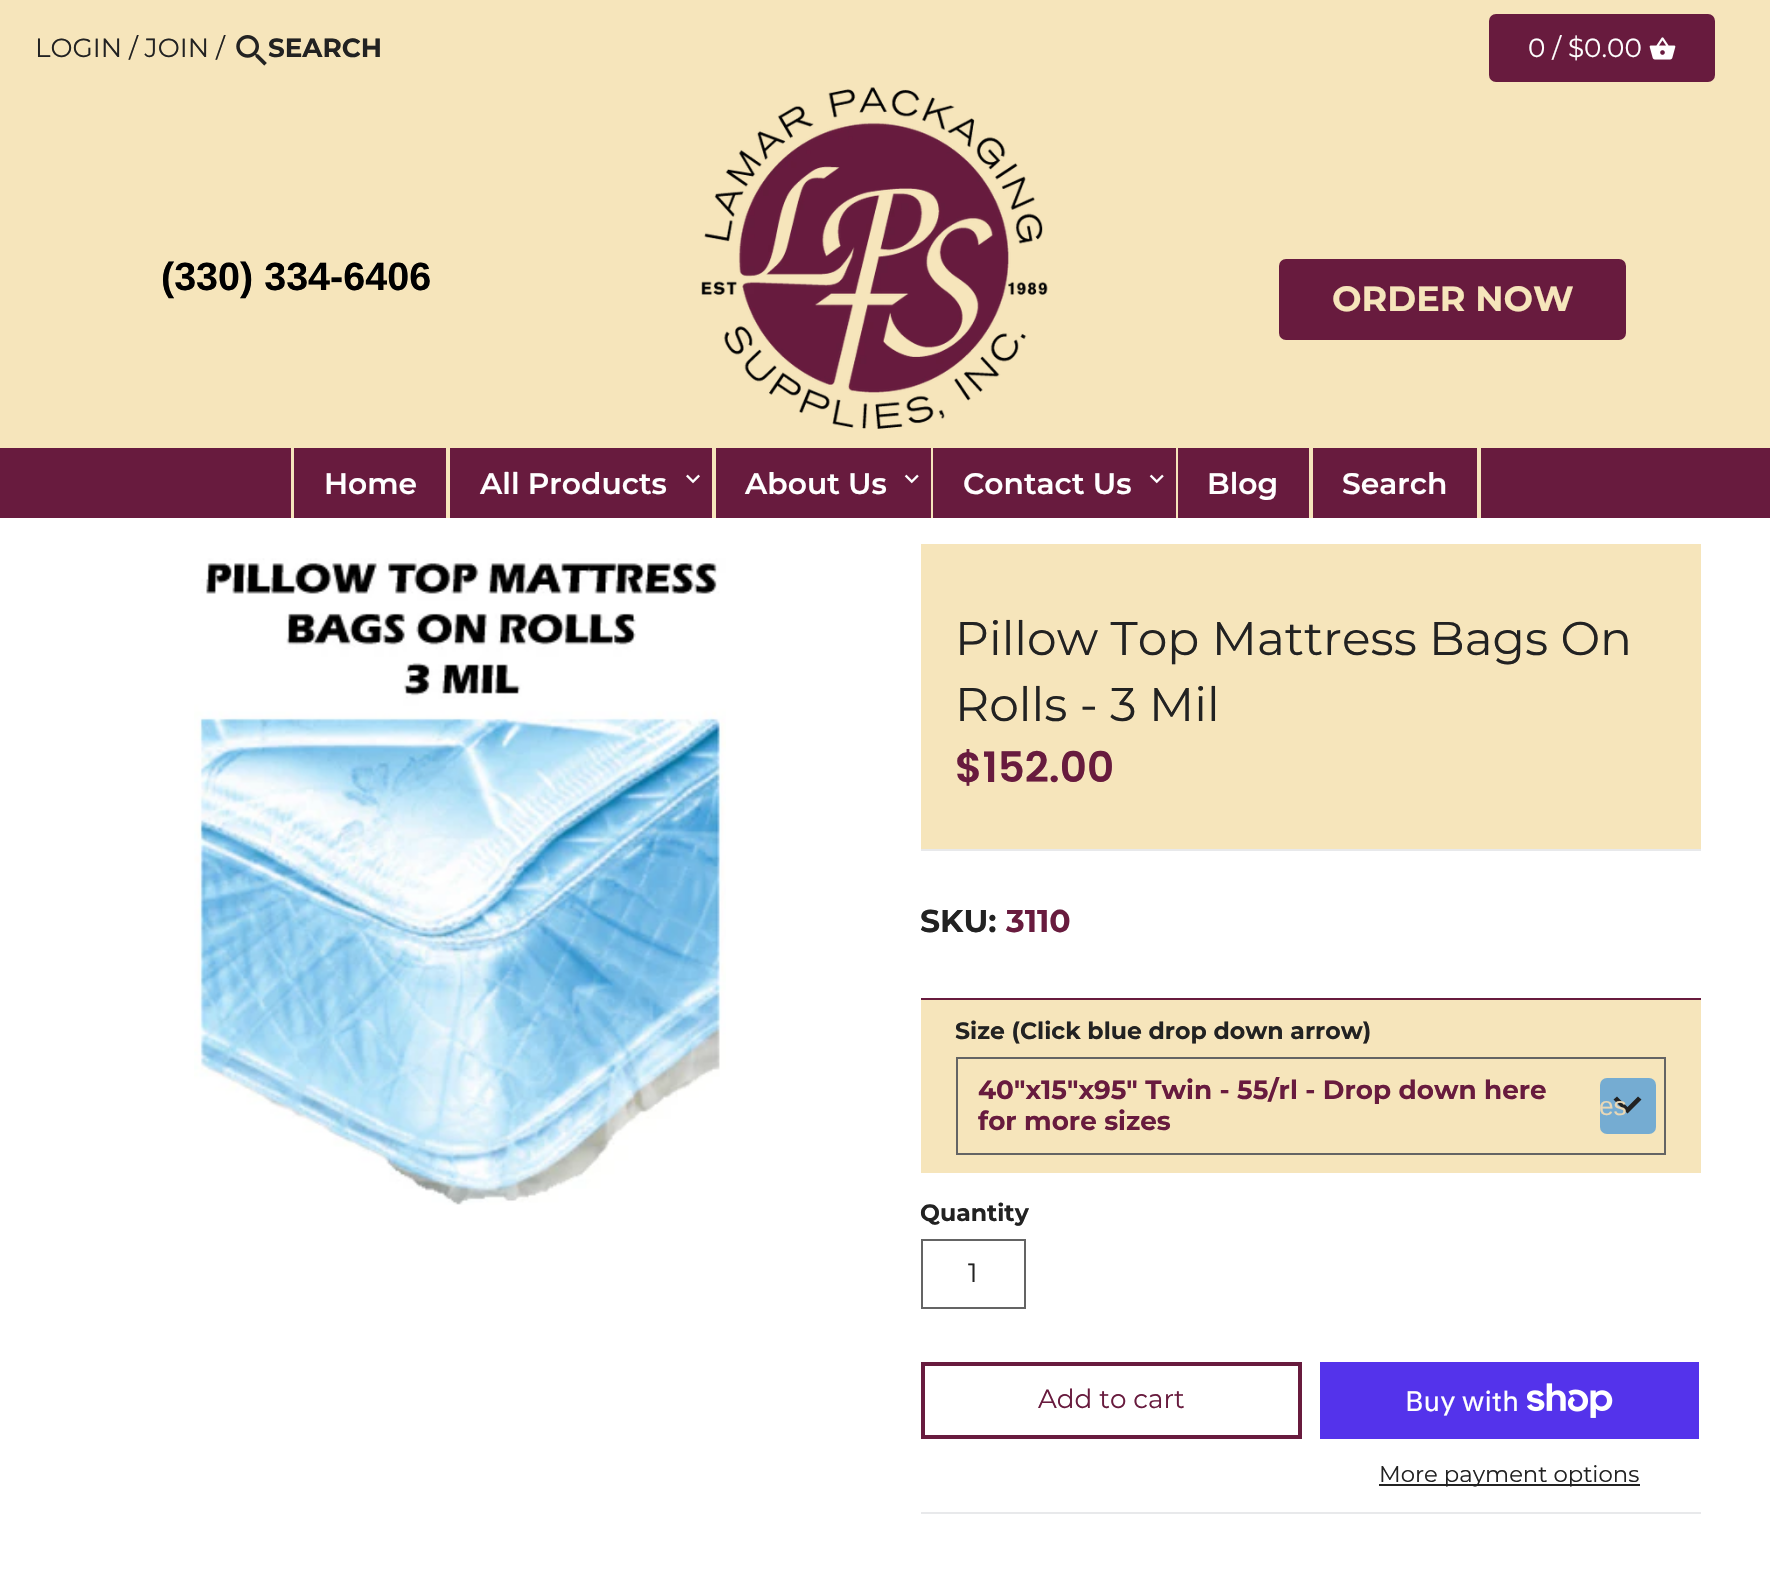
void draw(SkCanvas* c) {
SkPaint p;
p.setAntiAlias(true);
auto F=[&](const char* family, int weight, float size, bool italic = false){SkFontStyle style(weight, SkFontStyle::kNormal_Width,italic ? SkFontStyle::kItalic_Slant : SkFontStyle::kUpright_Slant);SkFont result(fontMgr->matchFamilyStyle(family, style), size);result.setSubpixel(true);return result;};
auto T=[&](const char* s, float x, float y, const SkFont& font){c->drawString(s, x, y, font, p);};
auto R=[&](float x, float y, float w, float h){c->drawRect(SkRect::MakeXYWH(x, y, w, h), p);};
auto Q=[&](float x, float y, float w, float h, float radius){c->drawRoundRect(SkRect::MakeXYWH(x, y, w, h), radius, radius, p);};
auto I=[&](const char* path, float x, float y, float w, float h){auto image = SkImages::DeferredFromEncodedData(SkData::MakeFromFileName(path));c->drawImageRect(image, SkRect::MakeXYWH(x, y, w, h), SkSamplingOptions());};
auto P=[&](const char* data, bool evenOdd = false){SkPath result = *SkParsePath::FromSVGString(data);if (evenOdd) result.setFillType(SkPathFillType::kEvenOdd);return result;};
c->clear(0xffffffff);
p.setColor(0xfff6e5bb);
R(0,0,1770,448);
auto f1 = F("Montserrat",400,26.25);
p.setColor(0xff222222);
T("LOGIN / JOIN /",35,57,f1);
I("1.png",236,35,31,31);
auto f2 = F("Montserrat",700,26.25);
T("SEARCH",268,57,f2);
p.setColor(0xff681b3e);
c->drawRoundRect(SkRect::MakeXYWH(1490,15,224,66),6,6,p);
p.setStroke(true);
p.setStrokeWidth(2);
c->drawRoundRect(SkRect::MakeXYWH(1490,15,224,66),6,6,p);
p.setStroke(false);
p.setColor(0xffffffff);
T("0 / $0.00",1528,57,f1);
I("2.png",1649,37,27,23);
auto f3 = F("Liberation Sans",700,39.5);
p.setColor(0xff000000);
T("(330) 334-6406",161,290,f3);
I("3.png",701,87,347,342);
p.setColor(0xff681b3e);
c->drawRoundRect(SkRect::MakeXYWH(1281,261,343,77),5,5,p);
p.setStroke(true);
p.setStrokeWidth(4);
c->drawRoundRect(SkRect::MakeXYWH(1281,261,343,77),5,5,p);
auto f4 = F("Montserrat",700,35);
p.setStroke(false);
p.setColor(0xfff6e5bb);
T("ORDER NOW",1332,311,f4);
p.setColor(0xff681b3e);
R(0,448,1770,70);
p.setColor(0xfff6e5bb);
R(291,448,3,70);
R(446,448,4,70);
auto f5 = F("Montserrat",600,29.75);
p.setColor(0xffffffff);
T("Home",324,494,f5);
T("All Products",480,494,f5);
I("4.png",686,474,14,10);
p.setColor(0xfff6e5bb);
R(712,448,4,70);
p.setColor(0xffffffff);
T("About Us",745,494,f5);
I("5.png",904,474,15,10);
p.setColor(0xfff6e5bb);
R(931,448,2,70);
p.setColor(0xffffffff);
T("Contact Us",963,494,f5);
I("5.png",1149,474,15,10);
p.setColor(0xfff6e5bb);
R(1309,448,4,70);
R(1176,448,2,70);
p.setColor(0xffffffff);
T("Blog",1207,494,f5);
p.setColor(0xfff6e5bb);
R(1477,448,4,70);
p.setColor(0xffffffff);
T("Search",1342,494,f5);
I("6.png",194,558,532,647);
p.setColor(0xfff6e5bb);
R(921,544,780,305);
p.setColor(0xffe8e9eb);
R(921,849,780,2);
auto f6 = F("Montserrat",400,47.25);
p.setColor(0xff222222);
T("Pillow Top Mattress Bags On",955,655,f6);
T("Rolls - 3 Mil",955,721,f6);
auto f7 = F("Poppins",600,42);
p.setColor(0xff681b3e);
T("$152.00",955,782,f7);
p.setColor(0xffe8e9eb);
R(921,1512,780,2);
auto f8 = F("Montserrat",700,31.5);
p.setColor(0xff222222);
T("SKU:",920,932,f8);
p.setColor(0xff681b3e);
T("3110",1006,932,f8);
p.setColor(0xfff6e5bb);
R(921,1000,780,173);
p.setColor(0xff681b3e);
R(921,998,780,2);
auto f9 = F("Montserrat",700,23.6);
p.setColor(0xff222222);
T("Size (Click blue drop down arrow)",955,1039,f9);
p.setStroke(true);
p.setStrokeWidth(2);
p.setColor(0xff646464);
c->drawRect(SkRect::MakeXYWH(957,1058,708,96),p);
p.setStroke(false);
p.setColor(0xff681b3e);
T("40\"x15\"x95\" Twin - 55/rl - Drop down here",978,1099,f2);
T("for more sizes",978,1130,f2);
p.setColor(0xff75acd2);
Q(1600,1078,56,56,7);
p.setColor(0xff222222);
c->drawPath(P("M1617 1096.5l10.5 10.5l10.5-10.5l3.5 3l-14 14l-14-14z"),p);
auto f10 = F("Liberation Sans",400,26.25);
p.setColor(0xffe9d8b6);
T("es",1599,1115,f10);
p.setColor(0xff222222);
T("Quantity",920,1221,f9);
p.setStroke(true);
p.setColor(0xff646464);
c->drawRect(SkRect::MakeXYWH(922,1240,103,68),p);
p.setStroke(false);
p.setColor(0xff222222);
T("1",968,1282,f1);
p.setStroke(true);
p.setStrokeWidth(4);
p.setColor(0xff681b3e);
c->drawRect(SkRect::MakeXYWH(923,1364,377,73),p);
p.setStroke(false);
T("Add to cart",1038,1408,f1);
p.setColor(0xff5433eb);
R(1320,1362,379,77);
auto f11 = F("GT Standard",400,28);
p.setColor(0xffffffff);
T("Buy with",1405,1411,f11);
I("7.png",1527,1383,86,35);
p.setColor(0xff222222);
R(1379,1484,261,2);
auto f12 = F("Montserrat",400,22.75);
T("More payment options",1379,1482,f12);
}
